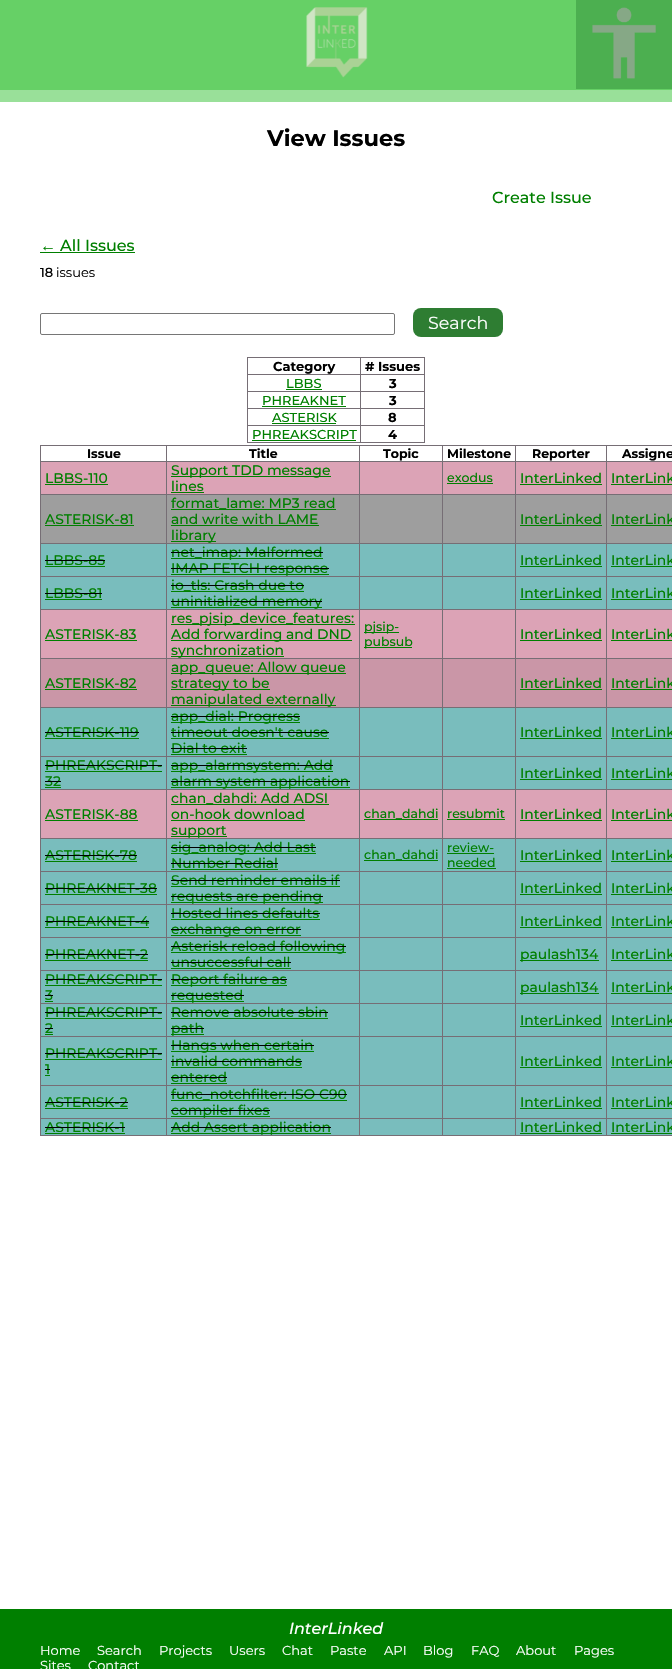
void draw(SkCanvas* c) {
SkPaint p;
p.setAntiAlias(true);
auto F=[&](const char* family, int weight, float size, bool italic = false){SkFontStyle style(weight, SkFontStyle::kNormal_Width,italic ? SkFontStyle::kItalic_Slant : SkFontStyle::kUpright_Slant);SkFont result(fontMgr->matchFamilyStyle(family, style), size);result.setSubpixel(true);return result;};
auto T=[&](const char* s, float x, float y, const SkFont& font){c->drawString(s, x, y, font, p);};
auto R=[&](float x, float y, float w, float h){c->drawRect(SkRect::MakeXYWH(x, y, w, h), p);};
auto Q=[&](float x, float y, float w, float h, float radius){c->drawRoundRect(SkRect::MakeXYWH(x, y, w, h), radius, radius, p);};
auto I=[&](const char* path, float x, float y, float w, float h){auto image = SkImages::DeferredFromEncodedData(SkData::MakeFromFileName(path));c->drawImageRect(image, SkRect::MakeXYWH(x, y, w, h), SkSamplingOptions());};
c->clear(0xffffffff);
p.setColor(0xff66d066);
R(0,0,672,90);
I("1.png",306,7,62,71);
p.setColor(0xff4caf50);
R(576,0,96,89);
I("2.png",592,7,64,72);
p.setColor(0xff99e099);
R(0,90,672,12);
auto f1 = F("Montserrat",700,22.5);
p.setColor(0xff000000);
T("View Issues",267,146,f1);
auto f2 = F("Montserrat",500,16);
p.setColor(0xff007f00);
T("Create Issue",492,203,f2);
auto f3 = F("Liberation Sans",400,16);
T("←",40,251,f3);
R(40,252,95,1);
T("All Issues",60,251,f2);
auto f4 = F("Montserrat",500,13);
p.setColor(0xff000000);
T("18",40,277,f4);
auto f5 = F("Montserrat",400,13);
T("issues",56,277,f5);
p.setStroke(true);
p.setStrokeWidth(1);
p.setColor(0xff767676);
c->drawRoundRect(SkRect::MakeXYWH(40.5,313.5,354,21),1.5,1.5,p);
p.setStroke(false);
p.setColor(0xff2e7d32);
Q(413,308,90,29,8);
auto f6 = F("Montserrat",400,17.5);
p.setColor(0xffffffff);
T("Search",428,329,f6);
p.setColor(0xff766e75);
R(360,357,65,1);
R(360,374,65,1);
R(360,391,65,1);
R(360,408,65,1);
R(360,425,65,1);
R(424,425,1,18);
R(360,442,65,1);
R(360,425,1,18);
R(247,425,114,1);
R(360,408,1,18);
R(247,408,114,1);
R(360,391,1,18);
R(247,391,114,1);
R(360,374,1,18);
R(247,374,114,1);
R(360,357,1,18);
R(247,357,114,1);
R(247,442,114,1);
R(247,425,1,18);
R(247,408,1,18);
R(247,391,1,18);
R(247,374,1,18);
R(247,357,1,18);
auto f7 = F("Montserrat",700,13);
p.setColor(0xff000000);
T("Category",273,371,f7);
p.setColor(0xff766e75);
R(424,408,1,18);
R(424,391,1,18);
R(424,374,1,18);
R(424,357,1,18);
p.setColor(0xff000000);
T("# Issues",365,371,f7);
p.setColor(0xff007f00);
T("LBBS",286,388,f4);
R(286,389,36,1);
p.setColor(0xff000000);
T("3",389,388,f7);
p.setColor(0xff007f00);
T("PHREAKNET",262,405,f4);
R(262,406,84,1);
p.setColor(0xff000000);
T("3",389,405,f7);
p.setColor(0xff007f00);
T("ASTERISK",272,422,f4);
R(272,423,64,1);
p.setColor(0xff000000);
T("8",388,422,f7);
p.setColor(0xff007f00);
T("PHREAKSCRIPT",252,439,f4);
R(252,440,104,1);
p.setColor(0xff000000);
T("4",388,439,f7);
p.setColor(0xff766e75);
R(606,445,66,1);
R(606,461,66,1);
p.setColor(0xffdca3b6);
R(41,462,631,32);
p.setColor(0xff766e75);
R(606,494,66,1);
p.setColor(0xff9e9e9e);
R(41,495,631,48);
p.setColor(0xff766e75);
R(606,543,66,1);
p.setColor(0xff79bdbd);
R(41,544,631,32);
p.setColor(0xff766e75);
R(606,576,66,1);
p.setColor(0xff79bdbd);
R(41,577,631,32);
p.setColor(0xff766e75);
R(606,609,66,1);
p.setColor(0xffdca3b6);
R(41,610,631,48);
p.setColor(0xff766e75);
R(606,658,66,1);
p.setColor(0xffca96a7);
R(41,659,631,48);
p.setColor(0xff766e75);
R(606,707,66,1);
p.setColor(0xff79bdbd);
R(41,708,631,48);
p.setColor(0xff766e75);
R(606,756,66,1);
p.setColor(0xff79bdbd);
R(41,757,631,32);
p.setColor(0xff766e75);
R(606,789,66,1);
p.setColor(0xffdca3b6);
R(41,790,631,48);
p.setColor(0xff766e75);
R(606,838,66,1);
p.setColor(0xff79bdbd);
R(41,839,631,32);
p.setColor(0xff766e75);
R(606,871,66,1);
p.setColor(0xff79bdbd);
R(41,872,631,32);
p.setColor(0xff766e75);
R(606,904,66,1);
p.setColor(0xff79bdbd);
R(41,905,631,32);
p.setColor(0xff766e75);
R(606,937,66,1);
p.setColor(0xff79bdbd);
R(41,938,631,32);
p.setColor(0xff766e75);
R(606,970,66,1);
p.setColor(0xff79bdbd);
R(41,971,631,32);
p.setColor(0xff766e75);
R(606,1003,66,1);
p.setColor(0xff79bdbd);
R(41,1004,631,32);
p.setColor(0xff766e75);
R(606,1036,66,1);
p.setColor(0xff79bdbd);
R(41,1037,631,48);
p.setColor(0xff766e75);
R(606,1085,66,1);
p.setColor(0xff79bdbd);
R(41,1086,631,32);
p.setColor(0xff766e75);
R(606,1118,66,1);
p.setColor(0xff79bdbd);
R(41,1119,631,16);
p.setColor(0xff766e75);
R(606,1135,66,1);
R(606,1118,1,18);
R(515,1118,92,1);
R(606,1085,1,34);
R(515,1085,92,1);
R(606,1036,1,50);
R(515,1036,92,1);
R(606,1003,1,34);
R(515,1003,92,1);
R(606,970,1,34);
R(515,970,92,1);
R(606,937,1,34);
R(515,937,92,1);
R(606,904,1,34);
R(515,904,92,1);
R(606,871,1,34);
R(515,871,92,1);
R(606,838,1,34);
R(515,838,92,1);
R(606,789,1,50);
R(515,789,92,1);
R(606,756,1,34);
R(515,756,92,1);
R(606,707,1,50);
R(515,707,92,1);
R(606,658,1,50);
R(515,658,92,1);
R(606,609,1,50);
R(515,609,92,1);
R(606,576,1,34);
R(515,576,92,1);
R(606,543,1,34);
R(515,543,92,1);
R(606,494,1,50);
R(515,494,92,1);
R(606,461,1,34);
R(515,461,92,1);
R(606,445,1,17);
R(515,445,92,1);
R(515,1135,92,1);
R(515,1118,1,18);
R(442,1118,74,1);
R(515,1085,1,34);
R(442,1085,74,1);
R(515,1036,1,50);
R(442,1036,74,1);
R(515,1003,1,34);
R(442,1003,74,1);
R(515,970,1,34);
R(442,970,74,1);
R(515,937,1,34);
R(442,937,74,1);
R(515,904,1,34);
R(442,904,74,1);
R(515,871,1,34);
R(442,871,74,1);
R(515,838,1,34);
R(442,838,74,1);
R(515,789,1,50);
R(442,789,74,1);
R(515,756,1,34);
R(442,756,74,1);
R(515,707,1,50);
R(442,707,74,1);
R(515,658,1,50);
R(442,658,74,1);
R(515,609,1,50);
R(442,609,74,1);
R(515,576,1,34);
R(442,576,74,1);
R(515,543,1,34);
R(442,543,74,1);
R(515,494,1,50);
R(442,494,74,1);
R(515,461,1,34);
R(442,461,74,1);
R(515,445,1,17);
R(442,445,74,1);
R(442,1135,74,1);
R(442,1118,1,18);
R(359,1118,84,1);
R(442,1085,1,34);
R(359,1085,84,1);
R(442,1036,1,50);
R(359,1036,84,1);
R(442,1003,1,34);
R(359,1003,84,1);
R(442,970,1,34);
R(359,970,84,1);
R(442,937,1,34);
R(359,937,84,1);
R(442,904,1,34);
R(359,904,84,1);
R(442,871,1,34);
R(359,871,84,1);
R(442,838,1,34);
R(359,838,84,1);
R(442,789,1,50);
R(359,789,84,1);
R(442,756,1,34);
R(359,756,84,1);
R(442,707,1,50);
R(359,707,84,1);
R(442,658,1,50);
R(359,658,84,1);
R(442,609,1,50);
R(359,609,84,1);
R(442,576,1,34);
R(359,576,84,1);
R(442,543,1,34);
R(359,543,84,1);
R(442,494,1,50);
R(359,494,84,1);
R(442,461,1,34);
R(359,461,84,1);
R(442,445,1,17);
R(359,445,84,1);
R(359,1135,84,1);
R(359,1118,1,18);
R(166,1118,194,1);
R(359,1085,1,34);
R(166,1085,194,1);
R(359,1036,1,50);
R(166,1036,194,1);
R(359,1003,1,34);
R(166,1003,194,1);
R(359,970,1,34);
R(166,970,194,1);
R(359,937,1,34);
R(166,937,194,1);
R(359,904,1,34);
R(166,904,194,1);
R(359,871,1,34);
R(166,871,194,1);
R(359,838,1,34);
R(166,838,194,1);
R(359,789,1,50);
R(166,789,194,1);
R(359,756,1,34);
R(166,756,194,1);
R(359,707,1,50);
R(166,707,194,1);
R(359,658,1,50);
R(166,658,194,1);
R(359,609,1,50);
R(166,609,194,1);
R(359,576,1,34);
R(166,576,194,1);
R(359,543,1,34);
R(166,543,194,1);
R(359,494,1,50);
R(166,494,194,1);
R(359,461,1,34);
R(166,461,194,1);
R(359,445,1,17);
R(166,445,194,1);
R(166,1135,194,1);
R(166,1118,1,18);
R(40,1118,127,1);
R(166,1085,1,34);
R(40,1085,127,1);
R(166,1036,1,50);
R(40,1036,127,1);
R(166,1003,1,34);
R(40,1003,127,1);
R(166,970,1,34);
R(40,970,127,1);
R(166,937,1,34);
R(40,937,127,1);
R(166,904,1,34);
R(40,904,127,1);
R(166,871,1,34);
R(40,871,127,1);
R(166,838,1,34);
R(40,838,127,1);
R(166,789,1,50);
R(40,789,127,1);
R(166,756,1,34);
R(40,756,127,1);
R(166,707,1,50);
R(40,707,127,1);
R(166,658,1,50);
R(40,658,127,1);
R(166,609,1,50);
R(40,609,127,1);
R(166,576,1,34);
R(40,576,127,1);
R(166,543,1,34);
R(40,543,127,1);
R(166,494,1,50);
R(40,494,127,1);
R(166,461,1,34);
R(40,461,127,1);
R(166,445,1,17);
R(40,445,127,1);
R(40,1135,127,1);
R(40,1118,1,18);
R(40,1085,1,34);
R(40,1036,1,50);
R(40,1003,1,34);
R(40,970,1,34);
R(40,937,1,34);
R(40,904,1,34);
R(40,871,1,34);
R(40,838,1,34);
R(40,789,1,50);
R(40,756,1,34);
R(40,707,1,50);
R(40,658,1,50);
R(40,609,1,50);
R(40,576,1,34);
R(40,543,1,34);
R(40,494,1,50);
R(40,461,1,34);
R(40,445,1,17);
auto f8 = F("Montserrat",700,12.5);
p.setColor(0xff000000);
T("Issue",87,458,f8);
T("Title",249,458,f8);
T("Topic",383,458,f8);
T("Milestone",447,458,f8);
T("Reporter",532,458,f8);
T("Assigne",622,458,f8);
auto f9 = F("Montserrat",500,13.9);
p.setColor(0xff007f00);
T("LBBS-110",45,483,f9);
R(45,484,63,1);
R(171,476,160,1);
T("Support TDD message",171,475,f9);
T("lines",171,491,f9);
R(171,492,33,1);
auto f10 = F("Montserrat",500,12.5);
T("exodus",447,482,f10);
R(447,483,46,1);
T("InterLinked",520,483,f9);
R(520,484,82,1);
T("InterLink",611,483,f9);
R(611,484,61,1);
T("ASTERISK-81",45,524,f9);
R(45,525,89,1);
T("format_lame: MP3 read",171,508,f9);
R(171,509,165,1);
T("and write with LAME",171,524,f9);
R(171,525,148,1);
R(171,541,45,1);
T("library",171,540,f9);
T("InterLinked",520,524,f9);
R(520,525,82,1);
T("InterLink",611,524,f9);
R(611,525,61,1);
T("LBBS-85",45,565,f9);
R(45,566,60,1);
p.setColor(0xff000000);
R(45,560,60,1);
p.setColor(0xff007f00);
R(171,558,152,1);
T("net_imap: Malformed",171,557,f9);
p.setColor(0xff000000);
R(171,552,152,1);
p.setColor(0xff007f00);
R(171,574,158,1);
T("IMAP FETCH response",171,573,f9);
p.setColor(0xff000000);
R(171,568,158,1);
p.setColor(0xff007f00);
T("InterLinked",520,565,f9);
R(520,566,82,1);
T("InterLink",611,565,f9);
R(611,566,61,1);
T("LBBS-81",45,598,f9);
R(45,599,57,1);
p.setColor(0xff000000);
R(45,593,57,1);
p.setColor(0xff007f00);
T("io_tls: Crash due to",171,590,f9);
R(171,591,133,1);
p.setColor(0xff000000);
R(171,585,133,1);
p.setColor(0xff007f00);
R(171,607,151,1);
T("uninitialized memory",171,606,f9);
p.setColor(0xff000000);
R(171,601,151,1);
p.setColor(0xff007f00);
T("InterLinked",520,598,f9);
R(520,599,82,1);
T("InterLink",611,598,f9);
R(611,599,61,1);
T("ASTERISK-83",45,639,f9);
R(45,640,92,1);
R(171,624,184,1);
T("res_pjsip_device_features:",171,623,f9);
R(171,640,181,1);
T("Add forwarding and DND",171,639,f9);
R(171,656,113,1);
T("synchronization",171,655,f9);
R(364,632,35,1);
T("pjsip-",364,631,f10);
R(364,647,48,1);
T("pubsub",364,646,f10);
T("InterLinked",520,639,f9);
R(520,640,82,1);
T("InterLink",611,639,f9);
R(611,640,61,1);
T("ASTERISK-82",45,688,f9);
R(45,689,92,1);
R(171,673,175,1);
T("app_queue: Allow queue",171,672,f9);
R(171,689,99,1);
T("strategy to be",171,688,f9);
R(171,705,165,1);
T("manipulated externally",171,704,f9);
T("InterLinked",520,688,f9);
R(520,689,82,1);
T("InterLink",611,688,f9);
R(611,689,61,1);
T("ASTERISK-119",45,737,f9);
R(45,738,94,1);
p.setColor(0xff000000);
R(45,732,94,1);
p.setColor(0xff007f00);
R(171,722,129,1);
T("app_dial: Progress",171,721,f9);
p.setColor(0xff000000);
R(171,716,129,1);
p.setColor(0xff007f00);
T("timeout doesn't cause",171,737,f9);
R(171,738,158,1);
p.setColor(0xff000000);
R(171,732,158,1);
p.setColor(0xff007f00);
T("Dial to exit",171,753,f9);
R(171,754,76,1);
p.setColor(0xff000000);
R(171,748,76,1);
p.setColor(0xff007f00);
T("InterLinked",520,737,f9);
R(520,738,82,1);
T("InterLink",611,737,f9);
R(611,738,61,1);
T("PHREAKSCRIPT-",45,770,f9);
R(45,771,117,1);
p.setColor(0xff000000);
R(45,765,117,1);
p.setColor(0xff007f00);
T("32",45,786,f9);
R(45,787,16,1);
p.setColor(0xff000000);
R(45,781,16,1);
p.setColor(0xff007f00);
R(171,771,162,1);
T("app_alarmsystem: Add",171,770,f9);
p.setColor(0xff000000);
R(171,765,162,1);
p.setColor(0xff007f00);
R(171,787,179,1);
T("alarm system application",171,786,f9);
p.setColor(0xff000000);
R(171,781,179,1);
p.setColor(0xff007f00);
T("InterLinked",520,778,f9);
R(520,779,82,1);
T("InterLink",611,778,f9);
R(611,779,61,1);
T("ASTERISK-88",45,819,f9);
R(45,820,93,1);
T("chan_dahdi: Add ADSI",171,803,f9);
R(171,804,158,1);
T("on-hook download",171,819,f9);
R(171,820,134,1);
R(171,836,56,1);
T("support",171,835,f9);
T("chan_dahdi",364,818,f10);
R(364,819,74,1);
T("resubmit",447,818,f10);
R(447,819,58,1);
T("InterLinked",520,819,f9);
R(520,820,82,1);
T("InterLink",611,819,f9);
R(611,820,61,1);
T("ASTERISK-78",45,860,f9);
R(45,861,92,1);
p.setColor(0xff000000);
R(45,855,92,1);
p.setColor(0xff007f00);
R(171,853,145,1);
T("sig_analog: Add Last",171,852,f9);
p.setColor(0xff000000);
R(171,847,145,1);
p.setColor(0xff007f00);
T("Number Redial",171,868,f9);
R(171,869,107,1);
p.setColor(0xff000000);
R(171,863,107,1);
p.setColor(0xff007f00);
T("chan_dahdi",364,859,f10);
R(364,860,74,1);
T("review-",447,852,f10);
R(447,853,47,1);
T("needed",447,867,f10);
R(447,868,49,1);
T("InterLinked",520,860,f9);
R(520,861,82,1);
T("InterLink",611,860,f9);
R(611,861,61,1);
T("PHREAKNET-38",45,893,f9);
R(45,894,112,1);
p.setColor(0xff000000);
R(45,888,112,1);
p.setColor(0xff007f00);
T("Send reminder emails if",171,885,f9);
R(171,886,169,1);
p.setColor(0xff000000);
R(171,880,169,1);
p.setColor(0xff007f00);
R(171,902,152,1);
T("requests are pending",171,901,f9);
p.setColor(0xff000000);
R(171,896,152,1);
p.setColor(0xff007f00);
T("InterLinked",520,893,f9);
R(520,894,82,1);
T("InterLink",611,893,f9);
R(611,894,61,1);
T("PHREAKNET-4",45,926,f9);
R(45,927,104,1);
p.setColor(0xff000000);
R(45,921,104,1);
p.setColor(0xff007f00);
T("Hosted lines defaults",171,918,f9);
R(171,919,149,1);
p.setColor(0xff000000);
R(171,913,149,1);
p.setColor(0xff007f00);
R(171,935,130,1);
T("exchange on error",171,934,f9);
p.setColor(0xff000000);
R(171,929,130,1);
p.setColor(0xff007f00);
T("InterLinked",520,926,f9);
R(520,927,82,1);
T("InterLink",611,926,f9);
R(611,927,61,1);
T("PHREAKNET-2",45,959,f9);
R(45,960,103,1);
p.setColor(0xff000000);
R(45,954,103,1);
p.setColor(0xff007f00);
R(171,952,175,1);
T("Asterisk reload following",171,951,f9);
p.setColor(0xff000000);
R(171,946,175,1);
p.setColor(0xff007f00);
T("unsuccessful call",171,967,f9);
R(171,968,120,1);
p.setColor(0xff000000);
R(171,962,120,1);
p.setColor(0xff007f00);
R(520,960,79,1);
T("paulash134",520,959,f9);
T("InterLink",611,959,f9);
R(611,960,61,1);
T("PHREAKSCRIPT-",45,984,f9);
R(45,985,117,1);
p.setColor(0xff000000);
R(45,979,117,1);
p.setColor(0xff007f00);
T("3",45,1000,f9);
R(45,1001,8,1);
p.setColor(0xff000000);
R(45,995,8,1);
p.setColor(0xff007f00);
R(171,985,116,1);
T("Report failure as",171,984,f9);
p.setColor(0xff000000);
R(171,979,116,1);
p.setColor(0xff007f00);
R(171,1001,73,1);
T("requested",171,1000,f9);
p.setColor(0xff000000);
R(171,995,73,1);
p.setColor(0xff007f00);
R(520,993,79,1);
T("paulash134",520,992,f9);
T("InterLink",611,992,f9);
R(611,993,61,1);
T("PHREAKSCRIPT-",45,1017,f9);
R(45,1018,117,1);
p.setColor(0xff000000);
R(45,1012,117,1);
p.setColor(0xff007f00);
T("2",45,1033,f9);
R(45,1034,8,1);
p.setColor(0xff000000);
R(45,1028,8,1);
p.setColor(0xff007f00);
T("Remove absolute sbin",171,1017,f9);
R(171,1018,157,1);
p.setColor(0xff000000);
R(171,1012,157,1);
p.setColor(0xff007f00);
R(171,1034,33,1);
T("path",171,1033,f9);
p.setColor(0xff000000);
R(171,1028,33,1);
p.setColor(0xff007f00);
T("InterLinked",520,1025,f9);
R(520,1026,82,1);
T("InterLink",611,1025,f9);
R(611,1026,61,1);
T("PHREAKSCRIPT-",45,1058,f9);
R(45,1059,117,1);
p.setColor(0xff000000);
R(45,1053,117,1);
p.setColor(0xff007f00);
T("1",45,1074,f9);
R(45,1075,5,1);
p.setColor(0xff000000);
R(45,1069,5,1);
p.setColor(0xff007f00);
R(171,1051,143,1);
T("Hangs when certain",171,1050,f9);
p.setColor(0xff000000);
R(171,1045,143,1);
p.setColor(0xff007f00);
T("invalid commands",171,1066,f9);
R(171,1067,131,1);
p.setColor(0xff000000);
R(171,1061,131,1);
p.setColor(0xff007f00);
T("entered",171,1082,f9);
R(171,1083,56,1);
p.setColor(0xff000000);
R(171,1077,56,1);
p.setColor(0xff007f00);
T("InterLinked",520,1066,f9);
R(520,1067,82,1);
T("InterLink",611,1066,f9);
R(611,1067,61,1);
T("ASTERISK-2",45,1107,f9);
R(45,1108,83,1);
p.setColor(0xff000000);
R(45,1102,83,1);
p.setColor(0xff007f00);
T("func_notchfilter: ISO C90",171,1099,f9);
R(171,1100,176,1);
p.setColor(0xff000000);
R(171,1094,176,1);
p.setColor(0xff007f00);
R(171,1116,99,1);
T("compiler fixes",171,1115,f9);
p.setColor(0xff000000);
R(171,1110,99,1);
p.setColor(0xff007f00);
T("InterLinked",520,1107,f9);
R(520,1108,82,1);
T("InterLink",611,1107,f9);
R(611,1108,61,1);
T("ASTERISK-1",45,1132,f9);
R(45,1133,80,1);
p.setColor(0xff000000);
R(45,1127,80,1);
p.setColor(0xff007f00);
R(171,1133,160,1);
T("Add Assert application",171,1132,f9);
p.setColor(0xff000000);
R(171,1127,160,1);
p.setColor(0xff007f00);
T("InterLinked",520,1132,f9);
R(520,1133,82,1);
T("InterLink",611,1132,f9);
R(611,1133,61,1);
R(0,1609,672,60);
auto f11 = F("Montserrat",500,16,true);
p.setColor(0xffffffff);
T("InterLinked",289,1634,f11);
T("Home",40,1655,f5);
T("Search",97,1655,f5);
T("Projects",159,1655,f5);
T("Users",229,1655,f5);
T("Chat",282,1655,f5);
T("Paste",330,1655,f5);
T("API",384,1655,f5);
T("Blog",423,1655,f5);
T("FAQ",471,1655,f5);
T("About",516,1655,f5);
T("Pages",574,1655,f5);
T("Sites",40,1670,f5);
T("Contact",88,1670,f5);
}
